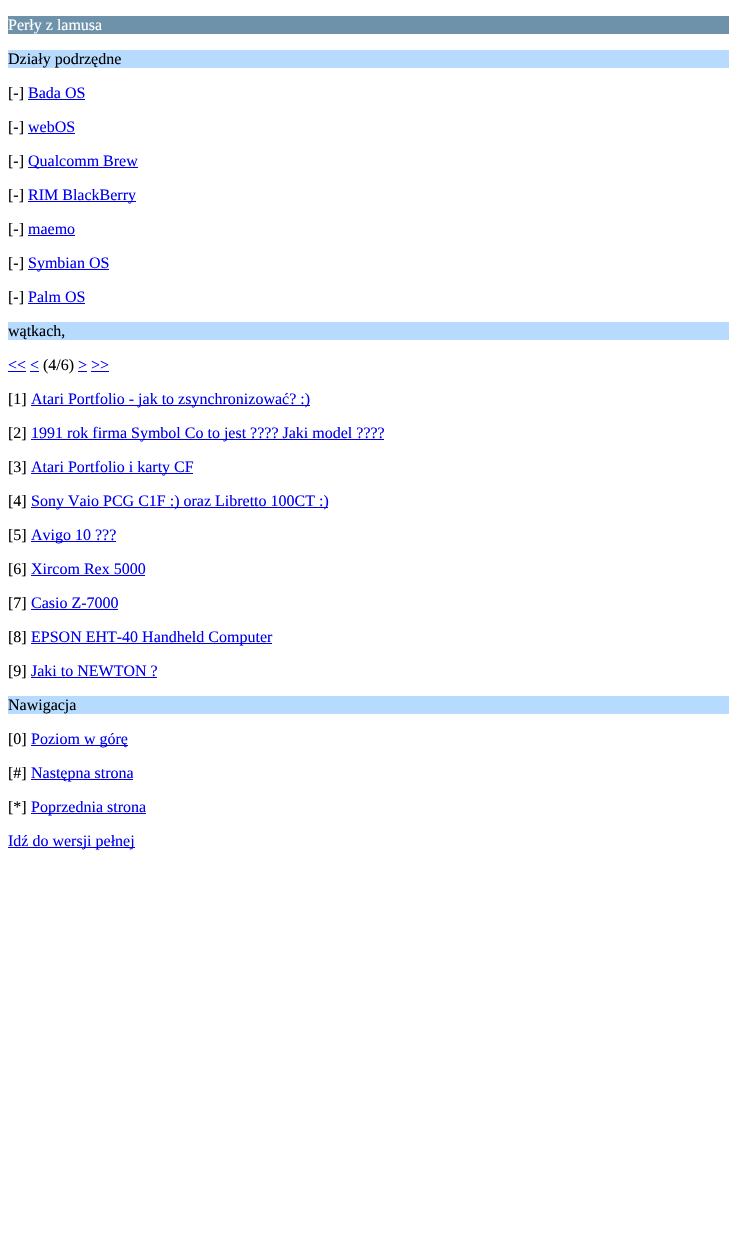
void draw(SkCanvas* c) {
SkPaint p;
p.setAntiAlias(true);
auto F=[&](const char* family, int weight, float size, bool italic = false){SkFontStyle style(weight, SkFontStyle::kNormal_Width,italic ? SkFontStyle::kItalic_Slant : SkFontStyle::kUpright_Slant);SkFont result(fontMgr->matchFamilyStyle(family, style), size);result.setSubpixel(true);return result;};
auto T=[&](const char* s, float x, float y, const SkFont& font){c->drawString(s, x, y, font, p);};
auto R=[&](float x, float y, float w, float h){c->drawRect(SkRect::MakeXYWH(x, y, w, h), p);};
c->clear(0xffffffff);
p.setColor(0xff6d92aa);
R(8,16,721,18);
auto f1 = F("Liberation Serif",400,16);
p.setColor(0xffffffff);
T("Perły z lamusa",8,30,f1);
p.setColor(0xffb6dbff);
R(8,50,721,18);
p.setColor(0xff000000);
T("Działy podrzędne",8,64,f1);
T("[-]",8,98,f1);
p.setColor(0xff0000ee);
T("Bada OS",28,98,f1);
R(28,99,57,1);
p.setColor(0xff000000);
T("[-]",8,132,f1);
p.setColor(0xff0000ee);
T("webOS",28,132,f1);
R(28,133,47,1);
p.setColor(0xff000000);
T("[-]",8,166,f1);
p.setColor(0xff0000ee);
R(28,167,110,1);
T("Qualcomm Brew",28,166,f1);
p.setColor(0xff000000);
T("[-]",8,200,f1);
p.setColor(0xff0000ee);
R(28,201,108,1);
T("RIM BlackBerry",28,200,f1);
p.setColor(0xff000000);
T("[-]",8,234,f1);
p.setColor(0xff0000ee);
T("maemo",28,234,f1);
R(28,235,47,1);
p.setColor(0xff000000);
T("[-]",8,268,f1);
p.setColor(0xff0000ee);
R(28,269,81,1);
T("Symbian OS",28,268,f1);
p.setColor(0xff000000);
T("[-]",8,302,f1);
p.setColor(0xff0000ee);
T("Palm OS",28,302,f1);
R(28,303,57,1);
p.setColor(0xffb6dbff);
R(8,322,721,18);
p.setColor(0xff000000);
T("wątkach,",8,336,f1);
p.setColor(0xff0000ee);
T("<< <",8,370,f1);
R(8,371,18,1);
p.setColor(0xff000000);
T("(4/6)",43,370,f1);
p.setColor(0xff0000ee);
T("> >>",78,370,f1);
R(78,371,9,1);
R(30,371,9,1);
R(91,371,18,1);
p.setColor(0xff000000);
T("[1]",8,404,f1);
p.setColor(0xff0000ee);
R(31,405,279,1);
T("Atari Portfolio - jak to zsynchronizować? :)",31,404,f1);
p.setColor(0xff000000);
T("[2]",8,438,f1);
p.setColor(0xff0000ee);
R(31,439,353,1);
T("1991 rok firma Symbol Co to jest ?\077?\077 Jaki model ?\077?\077",31,438,f1);
p.setColor(0xff000000);
T("[3]",8,472,f1);
p.setColor(0xff0000ee);
R(31,473,162,1);
T("Atari Portfolio i karty CF",31,472,f1);
p.setColor(0xff000000);
T("[4]",8,506,f1);
p.setColor(0xff0000ee);
R(31,507,297,1);
T("Sony Vaio PCG C1F :) oraz Libretto 100CT :)",31,506,f1);
p.setColor(0xff000000);
T("[5]",8,540,f1);
p.setColor(0xff0000ee);
R(31,541,85,1);
T("Avigo 10 ?\077?",31,540,f1);
p.setColor(0xff000000);
T("[6]",8,574,f1);
p.setColor(0xff0000ee);
T("Xircom Rex 5000",31,574,f1);
R(31,575,114,1);
p.setColor(0xff000000);
T("[7]",8,608,f1);
p.setColor(0xff0000ee);
T("Casio Z-7000",31,608,f1);
R(31,609,87,1);
p.setColor(0xff000000);
T("[8]",8,642,f1);
p.setColor(0xff0000ee);
R(31,643,241,1);
T("EPSON EHT-40 Handheld Computer",31,642,f1);
p.setColor(0xff000000);
T("[9]",8,676,f1);
p.setColor(0xff0000ee);
T("Jaki to NEWTON ?",31,676,f1);
R(31,677,126,1);
p.setColor(0xffb6dbff);
R(8,696,721,18);
p.setColor(0xff000000);
T("Nawigacja",8,710,f1);
T("[0]",8,744,f1);
p.setColor(0xff0000ee);
R(31,745,97,1);
T("Poziom w górę",31,744,f1);
p.setColor(0xff000000);
T("[#]",8,778,f1);
p.setColor(0xff0000ee);
R(31,779,102,1);
T("Następna strona",31,778,f1);
p.setColor(0xff000000);
T("[*]",8,812,f1);
p.setColor(0xff0000ee);
R(31,813,115,1);
T("Poprzednia strona",31,812,f1);
R(8,847,127,1);
T("Idź do wersji pełnej",8,846,f1);
}
